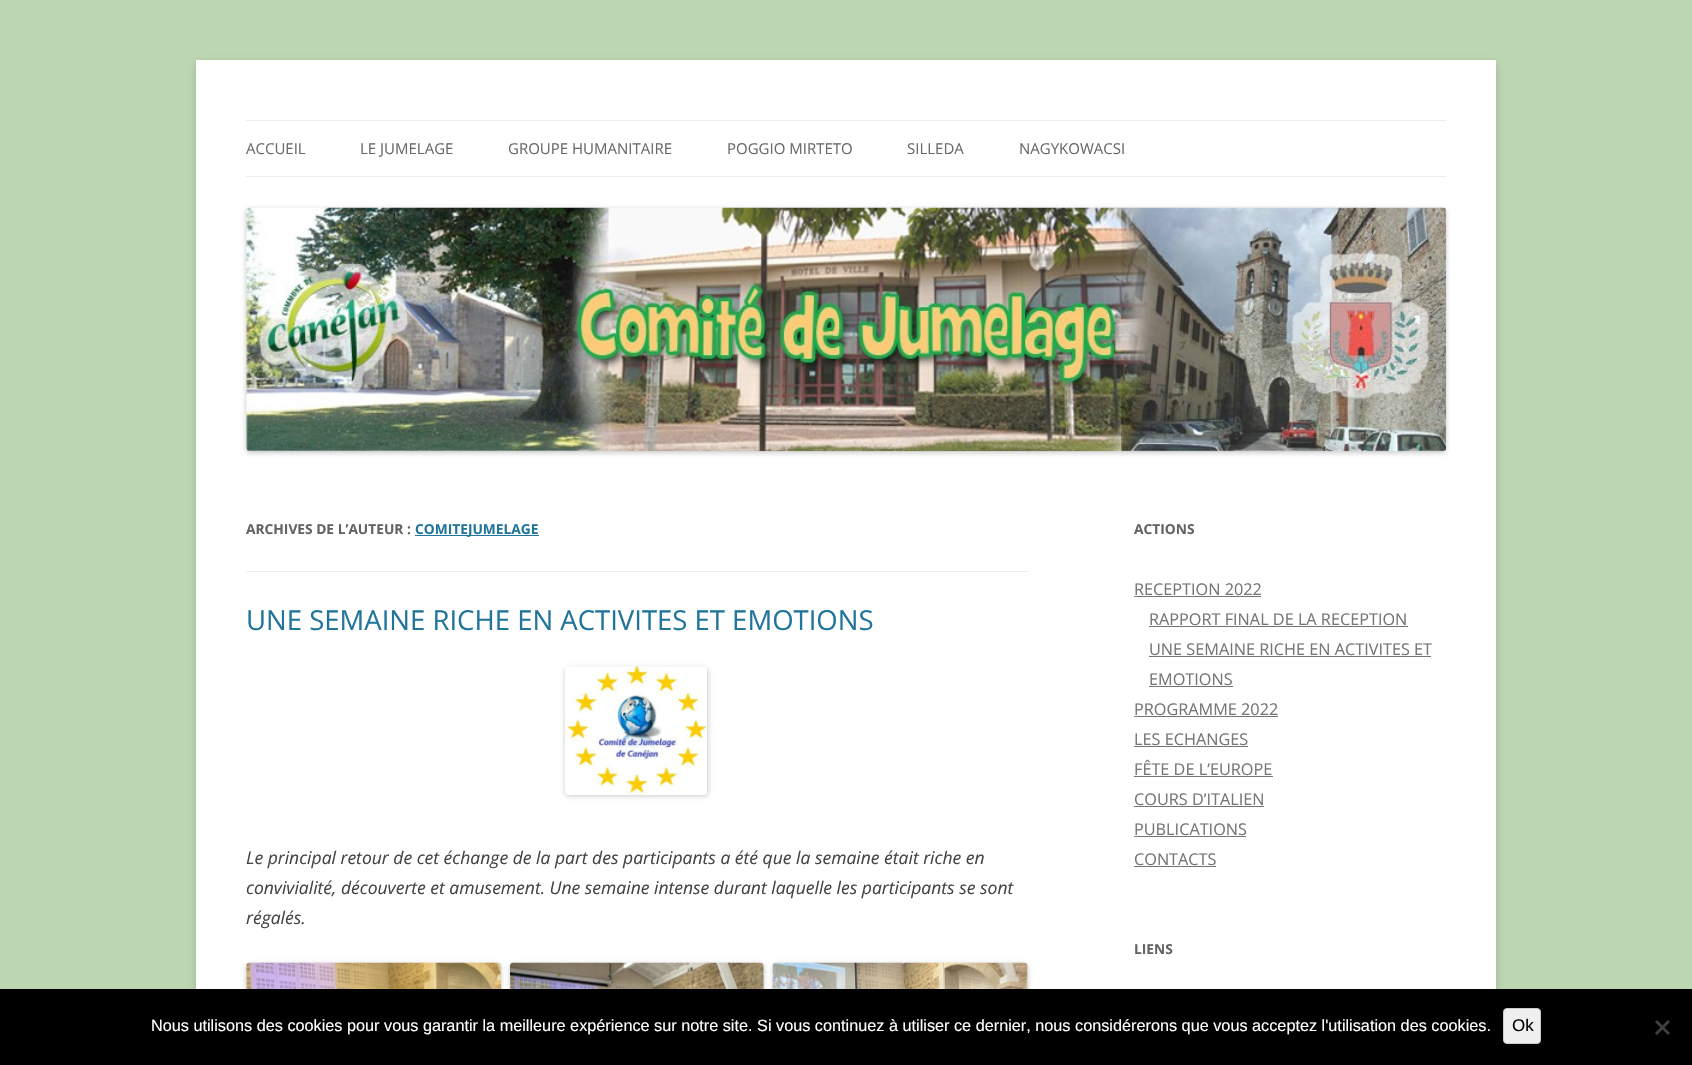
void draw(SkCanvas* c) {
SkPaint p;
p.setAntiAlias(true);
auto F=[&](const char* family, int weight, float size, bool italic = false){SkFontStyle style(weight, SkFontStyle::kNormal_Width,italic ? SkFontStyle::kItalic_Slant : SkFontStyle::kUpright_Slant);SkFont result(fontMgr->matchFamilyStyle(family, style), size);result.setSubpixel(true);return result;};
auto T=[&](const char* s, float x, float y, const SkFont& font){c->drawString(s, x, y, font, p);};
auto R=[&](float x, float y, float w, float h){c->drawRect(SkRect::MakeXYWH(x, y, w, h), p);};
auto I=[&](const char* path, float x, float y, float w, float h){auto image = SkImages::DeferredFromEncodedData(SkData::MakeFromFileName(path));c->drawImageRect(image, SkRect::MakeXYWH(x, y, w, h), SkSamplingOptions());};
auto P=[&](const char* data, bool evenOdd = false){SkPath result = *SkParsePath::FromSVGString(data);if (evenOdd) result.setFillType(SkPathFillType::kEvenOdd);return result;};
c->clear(0xffbcd6b1);
p.setColor(0x4d646464);
p.setMaskFilter(SkMaskFilter::MakeBlur(kNormal_SkBlurStyle, 4));
c->drawRect(SkRect::MakeXYWH(196,63,1300,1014),p);
p.setMaskFilter(nullptr);
p.setColor(0xffffffff);
R(196,60,1300,929);
p.setColor(0xffededed);
R(246,120,1200,1);
R(246,176,1200,1);
auto f1 = F("Open Sans",400,15);
p.setColor(0xff6a6a6a);
T("ACCUEIL",246,154,f1);
T("LE JUMELAGE",360,154,f1);
T("GROUPE HUMANITAIRE",508,154,f1);
T("POGGIO MIRTETO",727,154,f1);
T("SILLEDA",907,154,f1);
T("NAGYKOWACSI",1019,154,f1);
p.setColor(0x33000000);
p.setMaskFilter(SkMaskFilter::MakeBlur(kNormal_SkBlurStyle, 2.5));
c->drawRoundRect(SkRect::MakeXYWH(246,209,1200,244),4,4,p);
p.setMaskFilter(nullptr);
I("1.png",246,207,1201,245);
p.setColor(0xffededed);
R(246,571,782,1);
auto f2 = F("Open Sans",700,13.75);
p.setColor(0xff636363);
T("ARCHIVES DE L’AUTEUR :",246,534,f2);
p.setColor(0xff21759b);
R(415,535,124,1);
T("COMITEJUMELAGE",415,534,f2);
auto f3 = F("Open Sans",400,27.5);
T("UNE SEMAINE RICHE EN ACTIVITES ET EMOTIONS",246,630,f3);
p.setColor(0x33000000);
p.setMaskFilter(SkMaskFilter::MakeBlur(kNormal_SkBlurStyle, 2.5));
c->drawRoundRect(SkRect::MakeXYWH(565,668,143,128),4,4,p);
p.setMaskFilter(nullptr);
I("2.png",565,666,142,129);
auto f4 = F("Open Sans",400,17.5,true);
p.setColor(0xff444444);
T("Le principal retour de cet échange de la part des participants a été que la semaine était riche en",246,864,f4);
T("convivialité, découverte et amusement. Une semaine intense durant laquelle les participants se sont",246,894,f4);
T("régalés.",246,924,f4);
p.setColor(0x33000000);
p.setMaskFilter(SkMaskFilter::MakeBlur(kNormal_SkBlurStyle, 2.5));
c->drawRoundRect(SkRect::MakeXYWH(246,964,255,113),4,4,p);
p.setMaskFilter(nullptr);
I("3.png",246,962,256,27);
p.setMaskFilter(SkMaskFilter::MakeBlur(kNormal_SkBlurStyle, 2.5));
c->drawRoundRect(SkRect::MakeXYWH(510,964,254,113),4,4,p);
p.setMaskFilter(nullptr);
I("4.png",510,962,254,27);
p.setMaskFilter(SkMaskFilter::MakeBlur(kNormal_SkBlurStyle, 2.5));
c->drawRoundRect(SkRect::MakeXYWH(773,964,255,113),4,4,p);
p.setMaskFilter(nullptr);
I("5.png",772,962,256,27);
p.setColor(0xff636363);
T("ACTIONS",1134,534,f2);
auto f5 = F("Open Sans",400,16.25);
p.setColor(0xff757575);
T("RECEPTION 2022",1134,595,f5);
R(1134,596,127,1);
T("RAPPORT FINAL DE LA RECEPTION",1149,625,f5);
R(1149,626,259,1);
T("UNE SEMAINE RICHE EN ACTIVITES ET",1149,655,f5);
R(1149,656,282,1);
T("EMOTIONS",1149,685,f5);
R(1149,686,84,1);
T("PROGRAMME 2022",1134,715,f5);
R(1134,716,144,1);
T("LES ECHANGES",1134,745,f5);
R(1134,746,114,1);
T("FÊTE DE L’EUROPE",1134,775,f5);
R(1134,776,139,1);
T("COURS D’ITALIEN",1134,805,f5);
R(1134,806,130,1);
T("PUBLICATIONS",1134,835,f5);
R(1134,836,112,1);
T("CONTACTS",1134,865,f5);
R(1134,866,82,1);
p.setColor(0xff636363);
T("LIENS",1134,954,f2);
p.setColor(0xff000000);
R(0,989,1692,76);
auto f6 = F("Liberation Sans",400,16.25);
p.setColor(0xffffffff);
T("Nous utilisons des cookies pour vous garantir la meilleure expérience sur notre site. Si vous continuez à utiliser ce dernier, nous considérerons que vous acceptez l'utilisation des cookies.",151,1031,f6);
p.setColor(0xffefefef);
c->drawRoundRect(SkRect::MakeXYWH(1503.5,1008.5,37,35),3.5,3.5,p);
p.setStroke(true);
p.setStrokeWidth(1);
p.setColor(0xffcccccc);
c->drawRoundRect(SkRect::MakeXYWH(1503.5,1008.5,37,35),3.5,3.5,p);
auto f7 = F("Liberation Sans",400,17);
p.setStroke(false);
p.setColor(0xff000000);
T("Ok",1512,1031,f7);
p.setColor(0xff404040);
c->drawPath(P("M1668 1020l2 2l-13 13l-2-2z"),p);
c->drawPath(P("M1655 1022l2-2l13 13l-2 2z"),p);
}
